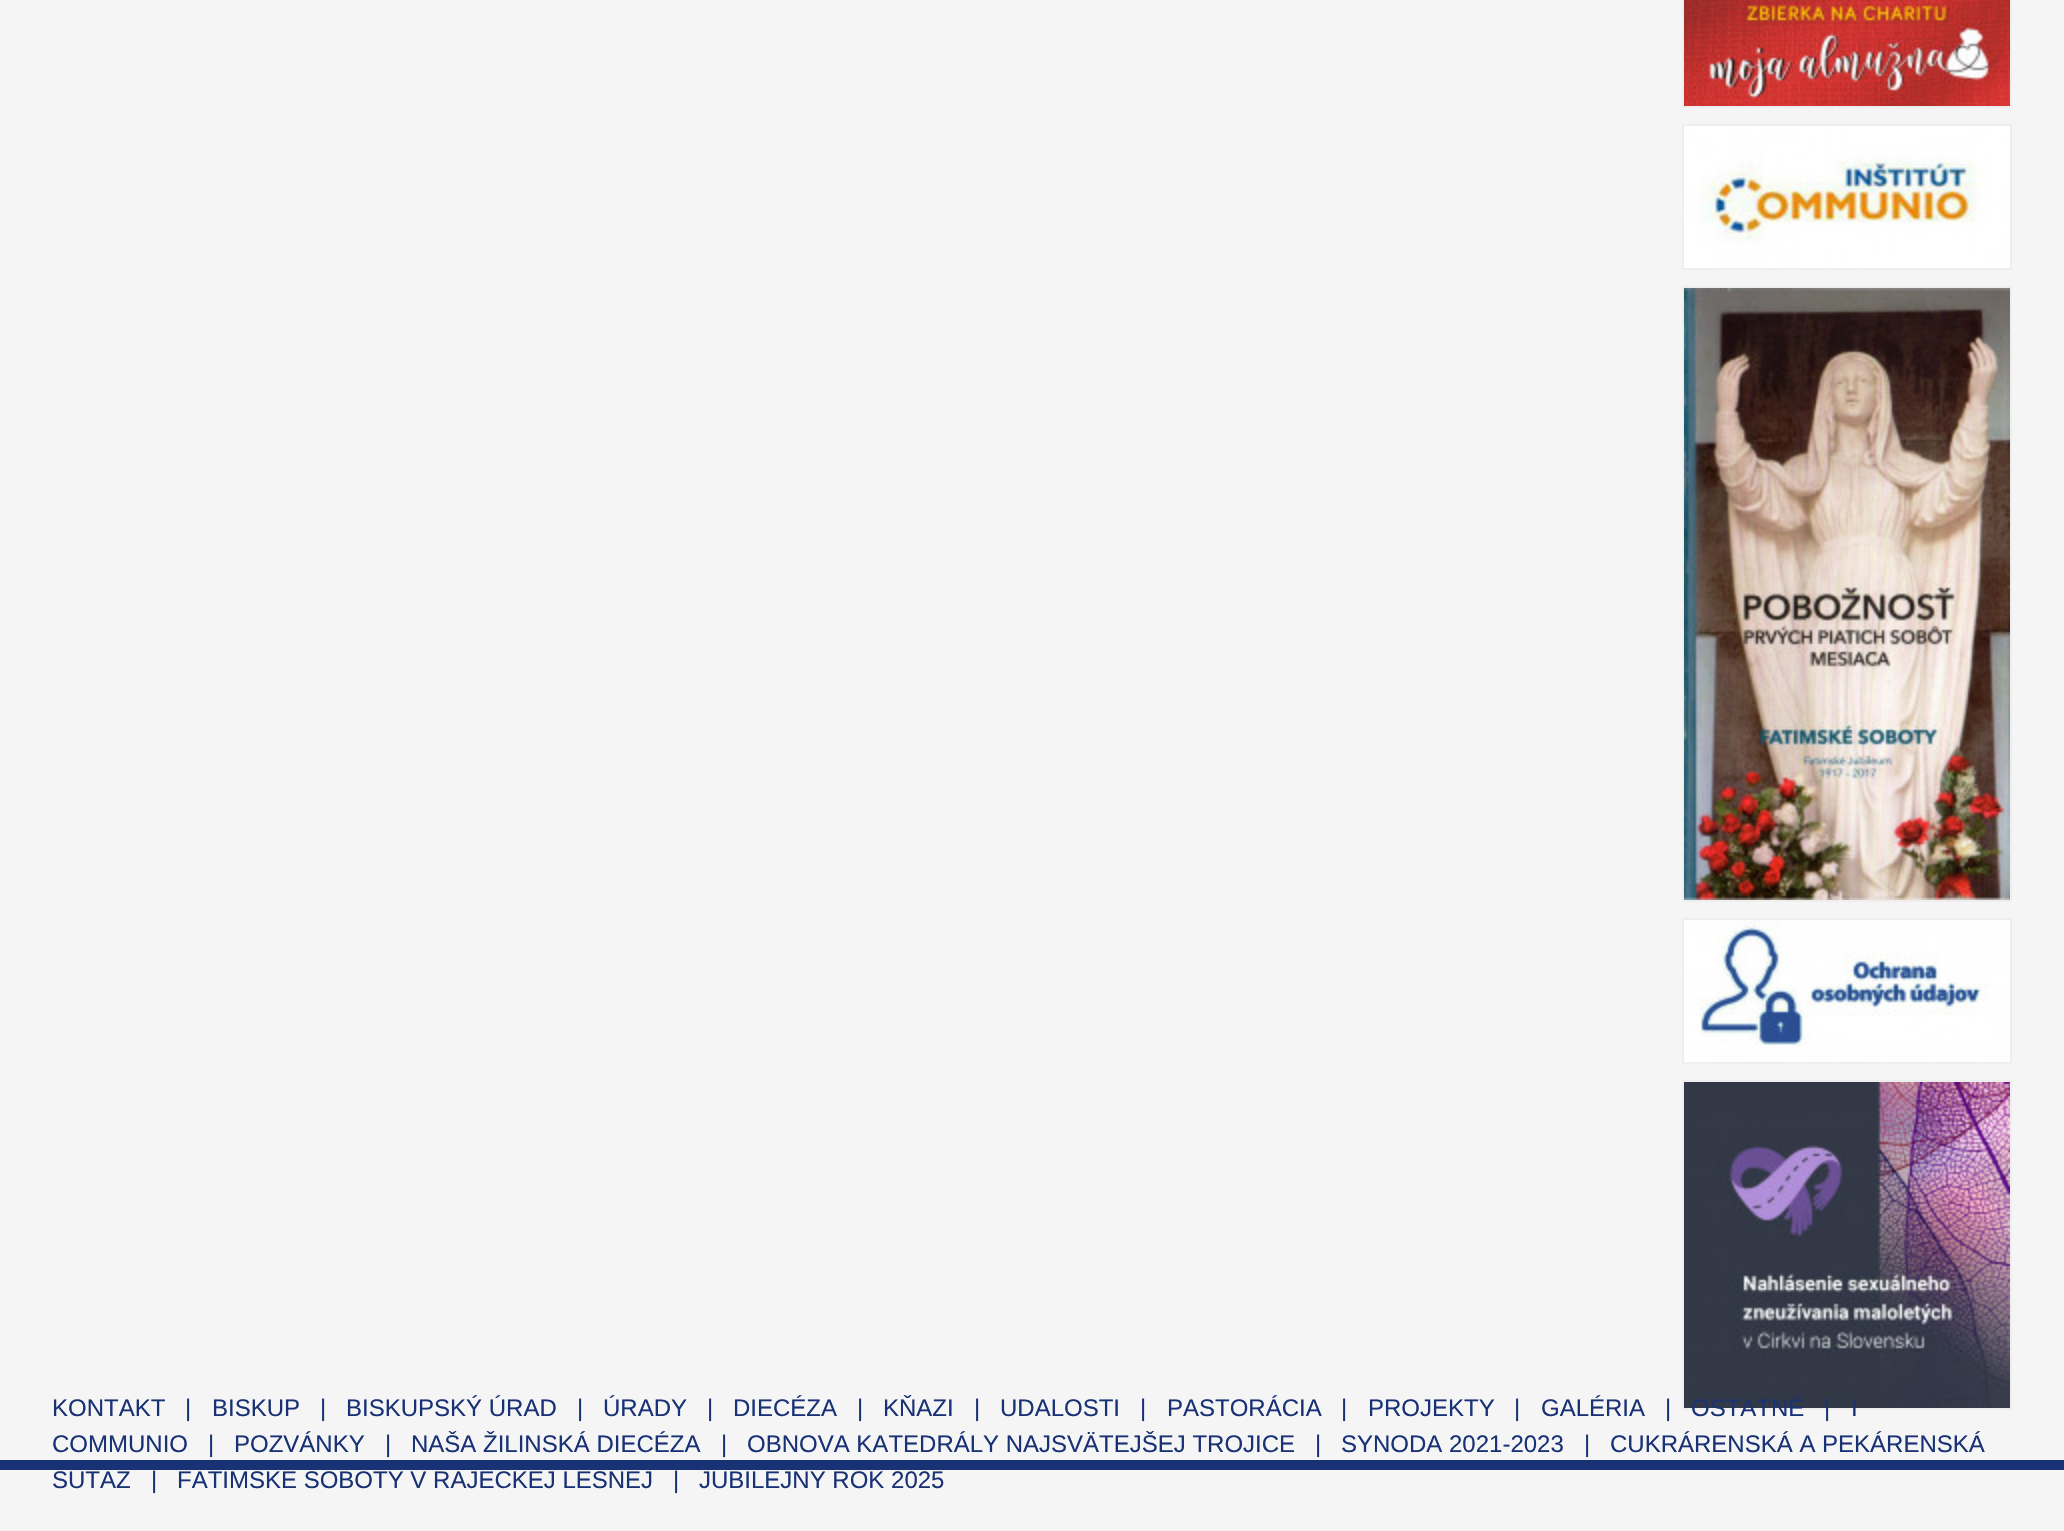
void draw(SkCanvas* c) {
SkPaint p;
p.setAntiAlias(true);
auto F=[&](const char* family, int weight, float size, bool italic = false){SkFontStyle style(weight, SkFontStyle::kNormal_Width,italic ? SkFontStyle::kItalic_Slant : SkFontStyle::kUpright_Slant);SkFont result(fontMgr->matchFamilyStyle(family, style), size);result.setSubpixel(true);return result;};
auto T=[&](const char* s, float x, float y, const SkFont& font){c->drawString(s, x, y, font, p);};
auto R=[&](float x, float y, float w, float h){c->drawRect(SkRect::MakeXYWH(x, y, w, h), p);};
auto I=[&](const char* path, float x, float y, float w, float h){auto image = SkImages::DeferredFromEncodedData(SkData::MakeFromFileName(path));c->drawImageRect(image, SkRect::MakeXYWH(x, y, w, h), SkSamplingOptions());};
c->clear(0xfff5f5f5);
p.setStroke(true);
p.setStrokeWidth(2);
p.setColor(0xffeeeeee);
c->drawRect(SkRect::MakeXYWH(1683,-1,328,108),p);
I("1.png",1684,0,326,106);
c->drawRect(SkRect::MakeXYWH(1683,125,328,144),p);
I("2.png",1684,126,326,142);
c->drawRect(SkRect::MakeXYWH(1683,287,328,614),p);
I("3.png",1684,288,326,612);
c->drawRect(SkRect::MakeXYWH(1683,919,328,144),p);
I("4.png",1684,920,326,142);
c->drawRect(SkRect::MakeXYWH(1683,1081,328,328),p);
I("5.png",1684,1082,326,326);
p.setStroke(false);
p.setColor(0xff193276);
R(0,1460,2064,10);
auto f1 = F("Liberation Sans",400,24);
T("KONTAKT",52,1416,f1);
T("|",185,1416,f1);
T("BISKUP",212,1416,f1);
T("|",320,1416,f1);
T("BISKUPSKÝ ÚRAD",346,1416,f1);
T("|",577,1416,f1);
T("ÚRADY",603,1416,f1);
T("|",707,1416,f1);
T("DIECÉZA",733,1416,f1);
T("|",857,1416,f1);
T("KŇAZI",883,1416,f1);
T("|",974,1416,f1);
T("UDALOSTI",1000,1416,f1);
T("|",1140,1416,f1);
T("PASTORÁCIA",1167,1416,f1);
T("|",1341,1416,f1);
T("PROJEKTY",1368,1416,f1);
T("|",1514,1416,f1);
T("GALÉRIA",1541,1416,f1);
T("|",1665,1416,f1);
T("OSTATNÉ",1691,1416,f1);
T("|",1824,1416,f1);
T("I",1851,1416,f1);
T("COMMUNIO",52,1452,f1);
T("|",208,1452,f1);
T("POZVÁNKY",234,1452,f1);
T("|",385,1452,f1);
T("NAŠA ŽILINSKÁ DIECÉZA",411,1452,f1);
T("|",721,1452,f1);
T("OBNOVA KATEDRÁLY NAJSVÄTEJŠEJ TROJICE",747,1452,f1);
T("|",1315,1452,f1);
T("SYNODA 2021-2023",1341,1452,f1);
T("|",1584,1452,f1);
T("CUKRÁRENSKÁ A PEKÁRENSKÁ",1610,1452,f1);
T("SÚŤAŽ",52,1488,f1);
T("|",151,1488,f1);
T("FATIMSKÉ SOBOTY V RAJECKEJ LESNEJ",177,1488,f1);
T("|",673,1488,f1);
T("JUBILEJNÝ ROK 2025",699,1488,f1);
}
